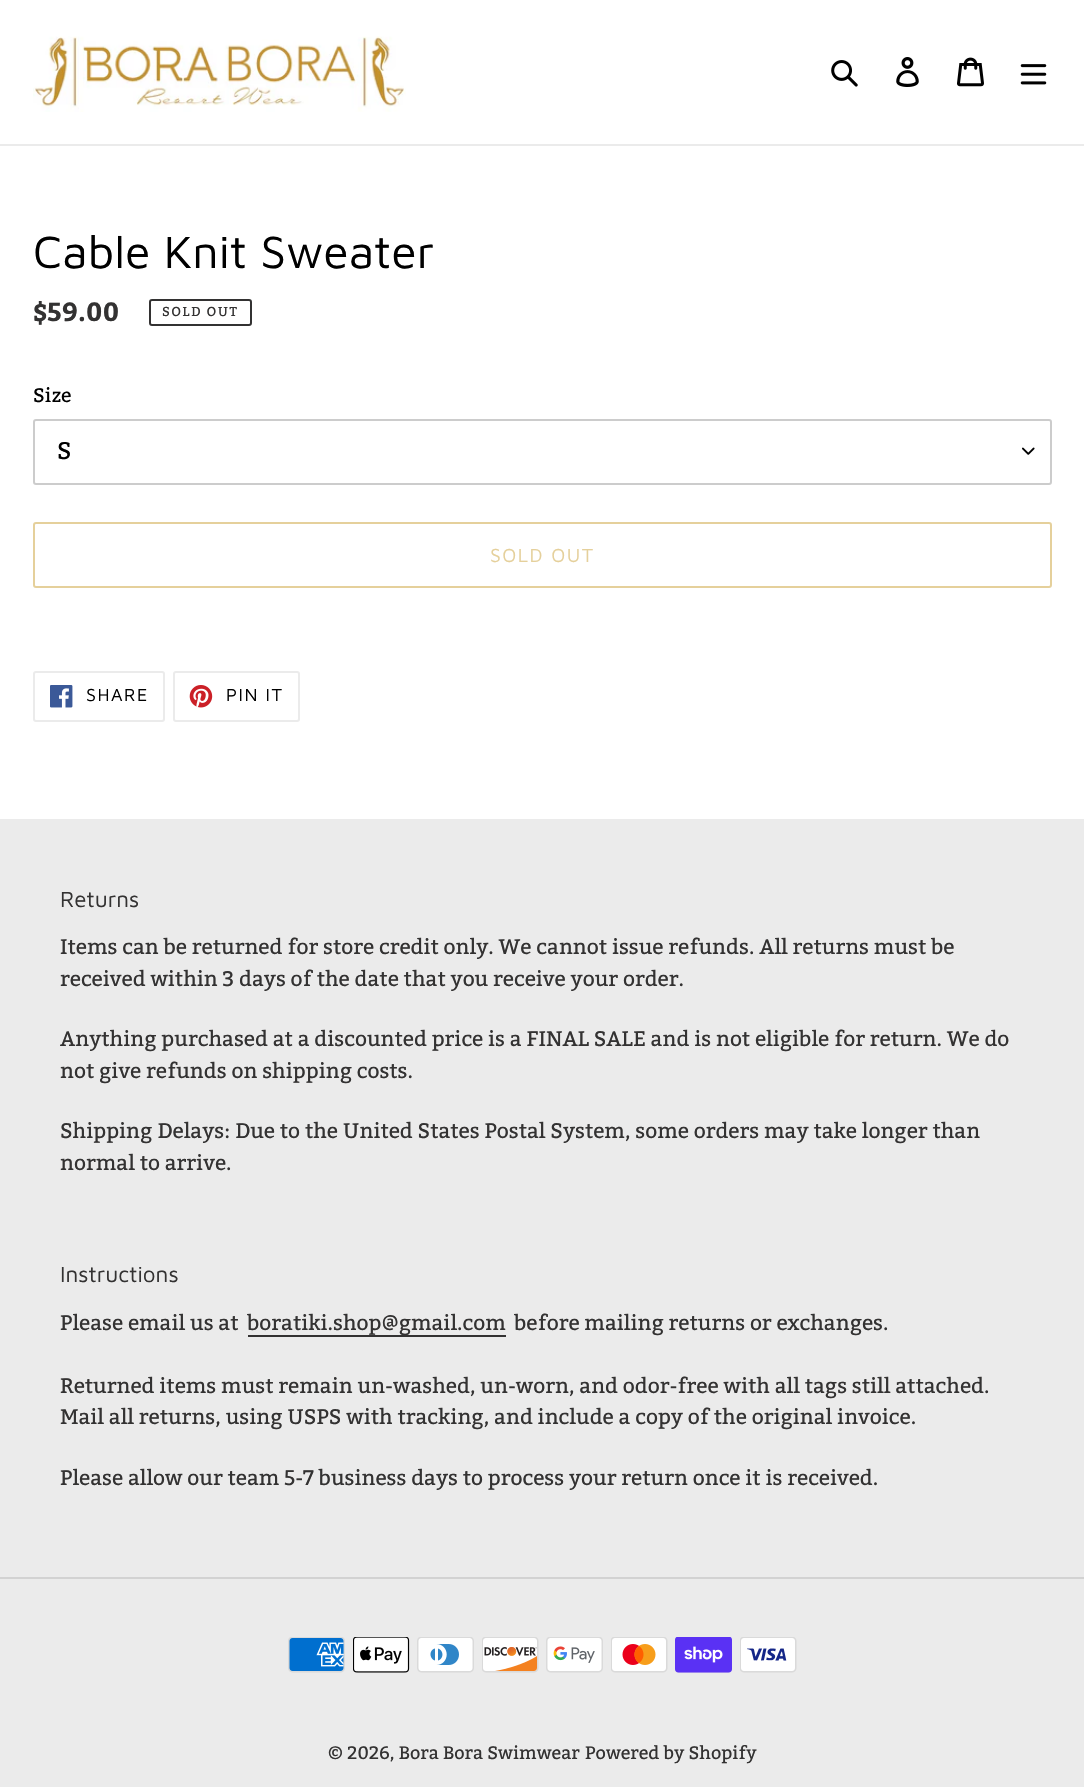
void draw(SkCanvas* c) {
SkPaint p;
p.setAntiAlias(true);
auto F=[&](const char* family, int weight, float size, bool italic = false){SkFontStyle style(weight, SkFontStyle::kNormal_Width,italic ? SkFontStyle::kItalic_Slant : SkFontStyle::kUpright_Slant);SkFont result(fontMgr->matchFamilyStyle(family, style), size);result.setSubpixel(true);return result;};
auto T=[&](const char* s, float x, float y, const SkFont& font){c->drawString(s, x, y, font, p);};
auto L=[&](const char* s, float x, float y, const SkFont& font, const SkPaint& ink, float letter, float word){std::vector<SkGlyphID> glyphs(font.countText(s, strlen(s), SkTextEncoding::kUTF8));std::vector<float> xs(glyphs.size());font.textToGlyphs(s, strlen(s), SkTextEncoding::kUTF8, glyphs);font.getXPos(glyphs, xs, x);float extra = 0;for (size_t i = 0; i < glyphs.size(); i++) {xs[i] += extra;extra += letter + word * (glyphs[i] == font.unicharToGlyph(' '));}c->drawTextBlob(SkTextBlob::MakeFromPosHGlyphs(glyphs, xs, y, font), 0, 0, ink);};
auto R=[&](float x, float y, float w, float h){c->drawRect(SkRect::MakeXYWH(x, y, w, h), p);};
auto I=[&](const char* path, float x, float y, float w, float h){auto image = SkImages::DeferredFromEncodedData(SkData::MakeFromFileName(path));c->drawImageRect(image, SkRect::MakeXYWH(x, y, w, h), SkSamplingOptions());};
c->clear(0xffffffff);
p.setColor(0xffebebeb);
R(0,144,1084,2);
I("1.png",33,36,373,76);
I("2.png",831,60,27,27);
I("3.png",896,57,23,30);
I("4.png",957,57,27,30);
I("5.png",1020,64,27,21);
auto f1 = F("Maven Pro",400,46.5);
p.setColor(0xff000000);
T("Cable Knit Sweater",33,268,f1);
auto f2 = F("Bitter",700,26);
p.setColor(0xff333232);
T("$59.00",33,321,f2);
p.setStroke(true);
p.setStrokeWidth(2);
c->drawRoundRect(SkRect::MakeXYWH(150,300,101,25),2,2,p);
auto f3 = F("Bitter",400,13);
p.setStroke(false);
L("SOLD OUT",162,316,f3,p,1.5,0);
auto f4 = F("Bitter",400,19.5);
p.setColor(0xff000000);
T("Size",33,402,f4);
I("6.png",1022,447,13,8);
p.setStroke(true);
p.setColor(0xffcccccc);
c->drawRoundRect(SkRect::MakeXYWH(34,420,1017,64),2,2,p);
auto f5 = F("Bitter",400,24);
p.setStroke(false);
p.setColor(0xff000000);
T("S",57,459,f5);
p.setStroke(true);
p.setColor(0xffe5d09b);
c->drawRoundRect(SkRect::MakeXYWH(34,523,1017,64),2,2,p);
auto f6 = F("Maven Pro",400,19.5);
p.setStroke(false);
L("SOLD OUT",490,562,f6,p,1.5,0);
p.setStroke(true);
p.setColor(0xffebebeb);
c->drawRoundRect(SkRect::MakeXYWH(34,672,130,49),2,2,p);
I("7.png",50,685,23,23);
auto f7 = F("Maven Pro",400,18);
p.setStroke(false);
p.setColor(0xff000000);
L("SHARE",86,701,f7,p,1.5,0);
p.setStroke(true);
p.setColor(0xffebebeb);
c->drawRoundRect(SkRect::MakeXYWH(174,672,125,49),2,2,p);
I("8.png",189,685,24,23);
p.setStroke(false);
p.setColor(0xff000000);
L("PIN IT",226,701,f7,p,1.5,0);
p.setColor(0xffebebeb);
R(0,819,1084,968);
auto f8 = F("Maven Pro",400,22.5);
p.setColor(0xff333232);
T("Returns",60,907,f8);
auto f9 = F("Bitter",400,21);
T("Items can be returned for store credit only. We cannot issue refunds. All returns must be",60,954,f9);
T("received within 3 days of the date that you receive your order.",60,986,f9);
T("Anything purchased at a discounted price is a FINAL SALE and is not eligible for return. We do",60,1046,f9);
T("not give refunds on shipping costs.",60,1078,f9);
T("Shipping Delays: Due to the United States Postal System, some orders may take longer than",60,1138,f9);
T("normal to arrive.",60,1170,f9);
T("Instructions",60,1282,f8);
T("Please email us at",60,1330,f9);
R(248,1335,258,2);
T("boratiki.shop@gmail.com",247,1330,f9);
T("before mailing returns or exchanges.",514,1330,f9);
T("Returned items must remain un-washed, un-worn, and odor-free with all tags still attached.",60,1393,f9);
T("Mail all returns, using USPS with tracking, and include a copy of the original invoice.",60,1424,f9);
T("Please allow our team 5-7 business days to process your return once it is received.",60,1485,f9);
p.setColor(0xffd2d2d2);
R(0,1577,1084,2);
I("9.png",288,1637,57,36);
I("10.png",353,1637,57,36);
I("11.png",417,1637,57,36);
I("12.png",482,1637,57,36);
I("13.png",546,1637,57,36);
I("14.png",611,1637,57,36);
I("15.png",675,1637,57,36);
I("16.png",740,1637,57,36);
auto f10 = F("Bitter",400,18);
p.setColor(0xff333232);
T("© 2026, Bora Bora Swimwear",328,1759,f10);
T("Powered by Shopify",585,1759,f10);
}
